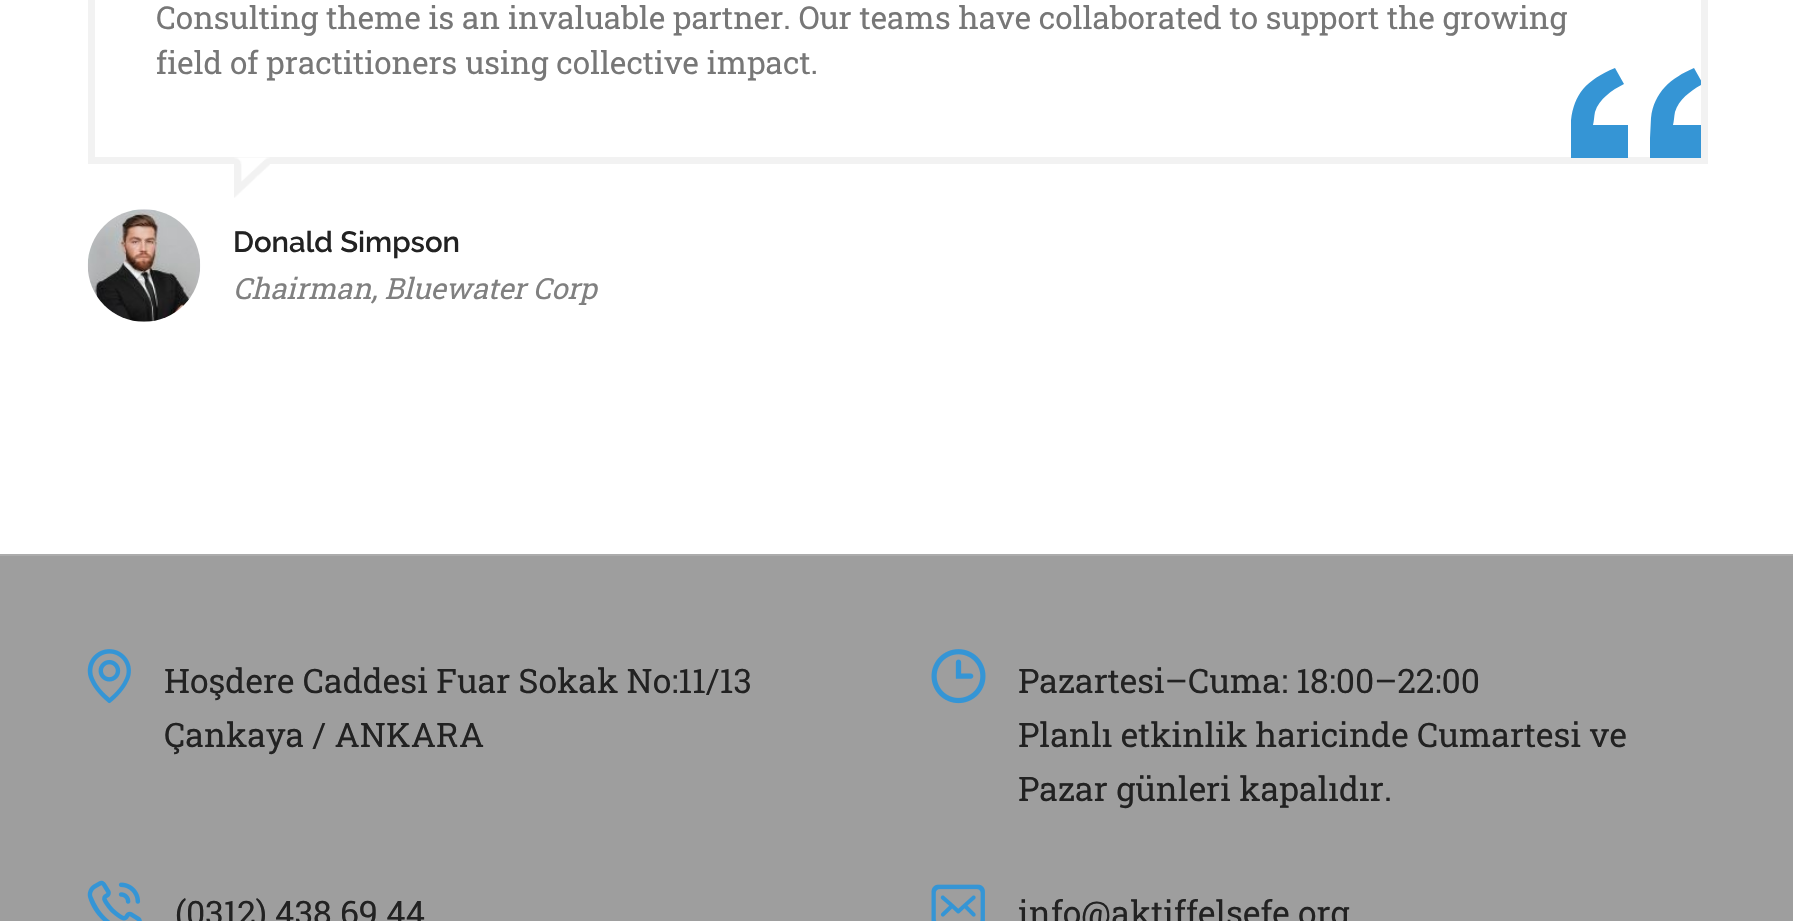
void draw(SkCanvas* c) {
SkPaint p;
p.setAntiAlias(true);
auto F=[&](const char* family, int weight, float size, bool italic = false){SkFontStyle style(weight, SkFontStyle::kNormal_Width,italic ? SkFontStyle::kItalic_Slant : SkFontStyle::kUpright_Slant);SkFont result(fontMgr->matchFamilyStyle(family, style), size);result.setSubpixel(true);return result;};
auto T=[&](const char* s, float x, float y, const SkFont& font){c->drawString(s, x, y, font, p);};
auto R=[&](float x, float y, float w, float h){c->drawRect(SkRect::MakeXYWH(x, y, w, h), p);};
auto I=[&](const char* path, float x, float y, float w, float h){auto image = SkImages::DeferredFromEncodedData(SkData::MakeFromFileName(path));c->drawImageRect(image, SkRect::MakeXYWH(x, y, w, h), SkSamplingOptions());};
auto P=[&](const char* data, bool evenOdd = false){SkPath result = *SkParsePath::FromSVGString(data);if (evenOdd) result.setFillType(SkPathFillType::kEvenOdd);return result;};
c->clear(0xffffffff);
p.setStroke(true);
p.setStrokeWidth(7);
p.setColor(0xfff2f2f2);
c->drawRect(SkRect::MakeXYWH(91.5,-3.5,1613,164),p);
auto f1 = F("Roboto Slab",400,31.5);
p.setStroke(false);
p.setColor(0xff777777);
T("Consulting theme is an invaluable partner. Our teams have collaborated to support the growing",156,29,f1);
T("field of practitioners using collective impact.",156,74,f1);
c->save();
c->clipRect(SkRect::MakeXYWH(1571,68,130,90));
p.setColor(0xff3595d5);
c->drawPath(P("M1650 176h57v-51h-34c1-4 1-8 2-13c4-13 17-22 28-28l-9-16c-23 10-40 24-43 50l-1 20zm-80 0h58v-51h-35c1-4 1-8 2-13c4-13 17-22 29-28l-9-16c-36 15-45 33-45 71z"),p);
c->restore();
I("1.png",234,157,36,41);
I("2.png",87,209,114,113);
auto f2 = F("Raleway",600,29.25);
p.setColor(0xff222222);
T("Donald Simpson",233,252,f2);
auto f3 = F("Roboto Slab",400,29.25,true);
p.setColor(0xff808080);
T("Chairman, Bluewater Corp",233,299,f3);
p.setColor(0xff9e9e9e);
R(0,556,1793,365);
p.setColor(0xffacacac);
R(0,554,1793,2);
I("3.png",87,649,44,55);
auto f4 = F("Roboto Slab",400,33.75);
p.setColor(0xff222222);
T("Hoşdere Caddesi Fuar Sokak No:11/13",164,693,f4);
T("Çankaya / ANKARA",164,747,f4);
I("4.png",931,649,55,55);
T("Pazartesi–Cuma: 18:00–22:00",1018,693,f4);
T("Planlı etkinlik haricinde Cumartesi ve",1018,747,f4);
T("Pazar günleri kapalıdır.",1018,801,f4);
I("5.png",87,880,55,41);
T("(0312) 438 69 44",175,925,f4);
I("6.png",931,884,54,37);
T("info@aktiffelsefe.org",1018,925,f4);
}
